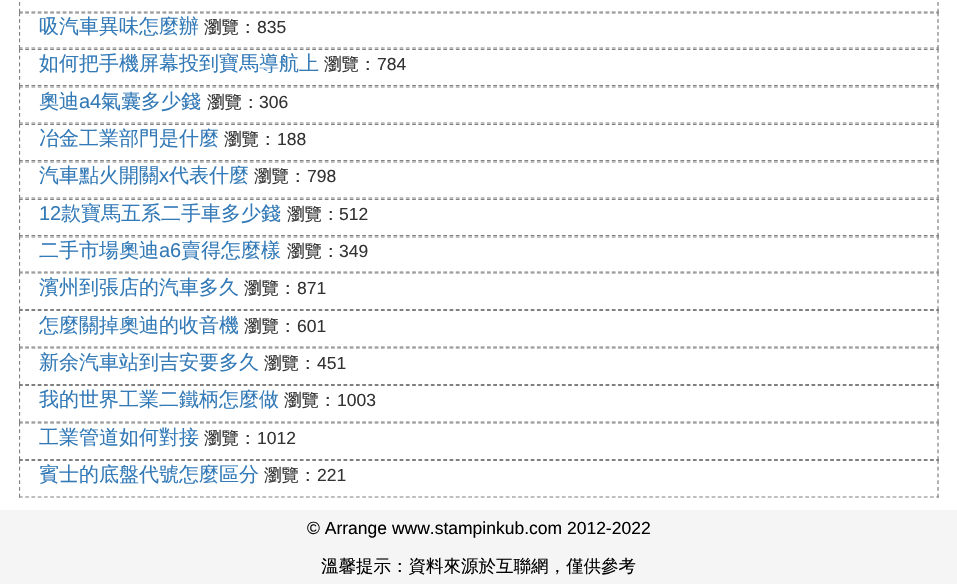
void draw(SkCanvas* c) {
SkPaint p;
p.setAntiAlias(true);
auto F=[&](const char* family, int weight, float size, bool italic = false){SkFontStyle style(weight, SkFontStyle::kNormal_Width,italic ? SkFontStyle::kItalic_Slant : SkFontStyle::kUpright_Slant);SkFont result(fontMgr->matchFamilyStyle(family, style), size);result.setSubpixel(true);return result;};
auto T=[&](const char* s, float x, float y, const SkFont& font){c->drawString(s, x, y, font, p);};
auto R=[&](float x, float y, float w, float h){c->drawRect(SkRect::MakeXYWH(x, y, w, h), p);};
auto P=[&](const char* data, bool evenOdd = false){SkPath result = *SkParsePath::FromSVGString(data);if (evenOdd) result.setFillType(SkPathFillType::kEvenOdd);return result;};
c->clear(0xffffffff);
p.setStroke(true);
p.setStrokeWidth(1.2);
p.setColor(0xff808080);
p.setPathEffect(SkDashPathEffect::Make({{3.75f,3}}, 0));
c->drawPath(P("M938-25v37.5"),p);
p.setPathEffect(nullptr);
p.setPathEffect(SkDashPathEffect::Make({{3.75f,2.49f}}, 0));
c->drawPath(P("M19 12h920"),p);
p.setPathEffect(nullptr);
c->save();
c->clipRect(SkRect::MakeXYWH(19,0,920,498));
p.setPathEffect(SkDashPathEffect::Make({{3.75f,3}}, 0));
c->drawPath(P("M19.5-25v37.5"),p);
p.setPathEffect(nullptr);
c->restore();
p.setPathEffect(SkDashPathEffect::Make({{3.75f,2.49f}}, 0));
c->drawPath(P("M19 13h920"),p);
p.setPathEffect(nullptr);
p.setPathEffect(SkDashPathEffect::Make({{3.75f,2.75f}}, 0));
c->drawPath(P("M938 12.5v36.5"),p);
p.setPathEffect(nullptr);
p.setPathEffect(SkDashPathEffect::Make({{3.75f,2.49f}}, 0));
c->drawPath(P("M19 48h920"),p);
p.setPathEffect(nullptr);
c->save();
c->clipRect(SkRect::MakeXYWH(19,0,920,498));
p.setPathEffect(SkDashPathEffect::Make({{3.75f,2.75f}}, 0));
c->drawPath(P("M19.5 12.5v36.5"),p);
p.setPathEffect(nullptr);
c->restore();
auto f1 = F("WenQuanYi Zen Hei",500,20);
p.setStroke(false);
p.setColor(0xff337ab7);
T("吸汽車異味怎麼辦",39,33,f1);
auto f2 = F("WenQuanYi Zen Hei",500,17.5);
p.setColor(0xff333333);
T("瀏覽：",204,33,f2);
auto f3 = F("Liberation Sans",400,17.5);
T("835",257,33,f3);
p.setStroke(true);
p.setColor(0xff808080);
p.setPathEffect(SkDashPathEffect::Make({{3.75f,2.49f}}, 0));
c->drawPath(P("M19 49.5h920"),p);
p.setPathEffect(nullptr);
p.setPathEffect(SkDashPathEffect::Make({{3.75f,3}}, 0));
c->drawPath(P("M938 49v37"),p);
p.setPathEffect(nullptr);
p.setPathEffect(SkDashPathEffect::Make({{3.75f,2.49f}}, 0));
c->drawPath(P("M19 85.5h920"),p);
p.setPathEffect(nullptr);
c->save();
c->clipRect(SkRect::MakeXYWH(19,0,920,498));
p.setPathEffect(SkDashPathEffect::Make({{3.75f,3}}, 0));
c->drawPath(P("M19.5 49v37"),p);
p.setPathEffect(nullptr);
c->restore();
p.setStroke(false);
p.setColor(0xff337ab7);
T("如何把手機屏幕投到寶馬導航上",39,70,f1);
p.setColor(0xff333333);
T("瀏覽：",324,70,f2);
T("784",377,70,f3);
p.setStroke(true);
p.setColor(0xff808080);
p.setPathEffect(SkDashPathEffect::Make({{3.75f,2.49f}}, 0));
c->drawPath(P("M19 87h920"),p);
p.setPathEffect(nullptr);
p.setPathEffect(SkDashPathEffect::Make({{3.75f,3}}, 0));
c->drawPath(P("M938 86v38"),p);
p.setPathEffect(nullptr);
p.setPathEffect(SkDashPathEffect::Make({{3.75f,2.49f}}, 0));
c->drawPath(P("M19 123h920"),p);
p.setPathEffect(nullptr);
c->save();
c->clipRect(SkRect::MakeXYWH(19,0,920,498));
p.setPathEffect(SkDashPathEffect::Make({{3.75f,3}}, 0));
c->drawPath(P("M19.5 86v38"),p);
p.setPathEffect(nullptr);
c->restore();
p.setStroke(false);
p.setColor(0xff337ab7);
T("奧迪",39,108,f1);
auto f4 = F("Liberation Sans",400,20);
T("a4",79,108,f4);
T("氣囊多少錢",101,108,f1);
p.setColor(0xff333333);
T("瀏覽：",207,108,f2);
T("306",259,108,f3);
p.setStroke(true);
p.setColor(0xff808080);
p.setPathEffect(SkDashPathEffect::Make({{3.75f,2.49f}}, 0));
c->drawPath(P("M19 124.5h920"),p);
p.setPathEffect(nullptr);
p.setPathEffect(SkDashPathEffect::Make({{3.75f,3}}, 0));
c->drawPath(P("M938 124v37"),p);
p.setPathEffect(nullptr);
p.setPathEffect(SkDashPathEffect::Make({{3.75f,2.49f}}, 0));
c->drawPath(P("M19 160.5h920"),p);
p.setPathEffect(nullptr);
c->save();
c->clipRect(SkRect::MakeXYWH(19,0,920,498));
p.setPathEffect(SkDashPathEffect::Make({{3.75f,3}}, 0));
c->drawPath(P("M19.5 124v37"),p);
p.setPathEffect(nullptr);
c->restore();
p.setStroke(false);
p.setColor(0xff337ab7);
T("冶金工業部門是什麼",39,145,f1);
p.setColor(0xff333333);
T("瀏覽：",224,145,f2);
T("188",277,145,f3);
p.setStroke(true);
p.setColor(0xff808080);
p.setPathEffect(SkDashPathEffect::Make({{3.75f,2.49f}}, 0));
c->drawPath(P("M19 162h920"),p);
p.setPathEffect(nullptr);
p.setPathEffect(SkDashPathEffect::Make({{3.75f,3}}, 0));
c->drawPath(P("M938 161v38"),p);
p.setPathEffect(nullptr);
p.setPathEffect(SkDashPathEffect::Make({{3.75f,2.49f}}, 0));
c->drawPath(P("M19 198h920"),p);
p.setPathEffect(nullptr);
c->save();
c->clipRect(SkRect::MakeXYWH(19,0,920,498));
p.setPathEffect(SkDashPathEffect::Make({{3.75f,3}}, 0));
c->drawPath(P("M19.5 161v38"),p);
p.setPathEffect(nullptr);
c->restore();
p.setStroke(false);
p.setColor(0xff337ab7);
T("汽車點火開關",39,182,f1);
T("x",159,182,f4);
T("代表什麼",169,182,f1);
p.setColor(0xff333333);
T("瀏覽：",254,182,f2);
T("798",307,182,f3);
p.setStroke(true);
p.setColor(0xff808080);
p.setPathEffect(SkDashPathEffect::Make({{3.75f,2.49f}}, 0));
c->drawPath(P("M19 199.5h920"),p);
p.setPathEffect(nullptr);
p.setPathEffect(SkDashPathEffect::Make({{3.75f,3}}, 0));
c->drawPath(P("M938 199v37"),p);
p.setPathEffect(nullptr);
p.setPathEffect(SkDashPathEffect::Make({{3.75f,2.49f}}, 0));
c->drawPath(P("M19 235.5h920"),p);
p.setPathEffect(nullptr);
c->save();
c->clipRect(SkRect::MakeXYWH(19,0,920,498));
p.setPathEffect(SkDashPathEffect::Make({{3.75f,3}}, 0));
c->drawPath(P("M19.5 199v37"),p);
p.setPathEffect(nullptr);
c->restore();
p.setStroke(false);
p.setColor(0xff337ab7);
T("12",39,220,f4);
T("款寶馬五系二手車多少錢",61,220,f1);
p.setColor(0xff333333);
T("瀏覽：",287,220,f2);
T("512",339,220,f3);
p.setStroke(true);
p.setColor(0xff808080);
p.setPathEffect(SkDashPathEffect::Make({{3.75f,2.49f}}, 0));
c->drawPath(P("M19 237h920"),p);
p.setPathEffect(nullptr);
p.setPathEffect(SkDashPathEffect::Make({{3.75f,2.75f}}, 0));
c->drawPath(P("M938 236v36.5"),p);
p.setPathEffect(nullptr);
p.setPathEffect(SkDashPathEffect::Make({{3.75f,2.49f}}, 0));
c->drawPath(P("M19 272h920"),p);
p.setPathEffect(nullptr);
c->save();
c->clipRect(SkRect::MakeXYWH(19,0,920,498));
p.setPathEffect(SkDashPathEffect::Make({{3.75f,2.75f}}, 0));
c->drawPath(P("M19.5 236v36.5"),p);
p.setPathEffect(nullptr);
c->restore();
p.setStroke(false);
p.setColor(0xff337ab7);
T("二手市場奧迪",39,257,f1);
T("a6",159,257,f4);
T("賣得怎麼樣",181,257,f1);
p.setColor(0xff333333);
T("瀏覽：",287,257,f2);
T("349",339,257,f3);
p.setStroke(true);
p.setColor(0xff808080);
p.setPathEffect(SkDashPathEffect::Make({{3.75f,2.49f}}, 0));
c->drawPath(P("M19 273h920"),p);
p.setPathEffect(nullptr);
p.setPathEffect(SkDashPathEffect::Make({{3.75f,3}}, 0));
c->drawPath(P("M938 272.5v37.5"),p);
p.setPathEffect(nullptr);
p.setPathEffect(SkDashPathEffect::Make({{3.75f,2.49f}}, 0));
c->drawPath(P("M19 309.5h920"),p);
p.setPathEffect(nullptr);
c->save();
c->clipRect(SkRect::MakeXYWH(19,0,920,498));
p.setPathEffect(SkDashPathEffect::Make({{3.75f,3}}, 0));
c->drawPath(P("M19.5 272.5v37.5"),p);
p.setPathEffect(nullptr);
c->restore();
p.setStroke(false);
p.setColor(0xff337ab7);
T("濱州到張店的汽車多久",39,294,f1);
p.setColor(0xff333333);
T("瀏覽：",244,294,f2);
T("871",297,294,f3);
p.setStroke(true);
p.setColor(0xff808080);
p.setPathEffect(SkDashPathEffect::Make({{3.75f,2.49f}}, 0));
c->drawPath(P("M19 310.5h920"),p);
p.setPathEffect(nullptr);
p.setPathEffect(SkDashPathEffect::Make({{3.75f,3}}, 0));
c->drawPath(P("M938 310v37.5"),p);
p.setPathEffect(nullptr);
p.setPathEffect(SkDashPathEffect::Make({{3.75f,2.49f}}, 0));
c->drawPath(P("M19 347h920"),p);
p.setPathEffect(nullptr);
c->save();
c->clipRect(SkRect::MakeXYWH(19,0,920,498));
p.setPathEffect(SkDashPathEffect::Make({{3.75f,3}}, 0));
c->drawPath(P("M19.5 310v37.5"),p);
p.setPathEffect(nullptr);
c->restore();
p.setStroke(false);
p.setColor(0xff337ab7);
T("怎麼關掉奧迪的收音機",39,332,f1);
p.setColor(0xff333333);
T("瀏覽：",244,332,f2);
T("601",297,332,f3);
p.setStroke(true);
p.setColor(0xff808080);
p.setPathEffect(SkDashPathEffect::Make({{3.75f,2.49f}}, 0));
c->drawPath(P("M19 348h920"),p);
p.setPathEffect(nullptr);
p.setPathEffect(SkDashPathEffect::Make({{3.75f,3}}, 0));
c->drawPath(P("M938 347.5v37.5"),p);
p.setPathEffect(nullptr);
p.setPathEffect(SkDashPathEffect::Make({{3.75f,2.49f}}, 0));
c->drawPath(P("M19 384.5h920"),p);
p.setPathEffect(nullptr);
c->save();
c->clipRect(SkRect::MakeXYWH(19,0,920,498));
p.setPathEffect(SkDashPathEffect::Make({{3.75f,3}}, 0));
c->drawPath(P("M19.5 347.5v37.5"),p);
p.setPathEffect(nullptr);
c->restore();
p.setStroke(false);
p.setColor(0xff337ab7);
T("新余汽車站到吉安要多久",39,369,f1);
p.setColor(0xff333333);
T("瀏覽：",264,369,f2);
T("451",317,369,f3);
p.setStroke(true);
p.setColor(0xff808080);
p.setPathEffect(SkDashPathEffect::Make({{3.75f,2.49f}}, 0));
c->drawPath(P("M19 385.5h920"),p);
p.setPathEffect(nullptr);
p.setPathEffect(SkDashPathEffect::Make({{3.75f,3}}, 0));
c->drawPath(P("M938 385v37.5"),p);
p.setPathEffect(nullptr);
p.setPathEffect(SkDashPathEffect::Make({{3.75f,2.49f}}, 0));
c->drawPath(P("M19 422h920"),p);
p.setPathEffect(nullptr);
c->save();
c->clipRect(SkRect::MakeXYWH(19,0,920,498));
p.setPathEffect(SkDashPathEffect::Make({{3.75f,3}}, 0));
c->drawPath(P("M19.5 385v37.5"),p);
p.setPathEffect(nullptr);
c->restore();
p.setStroke(false);
p.setColor(0xff337ab7);
T("我的世界工業二鐵柄怎麼做",39,406,f1);
p.setColor(0xff333333);
T("瀏覽：",284,406,f2);
T("1003",337,406,f3);
p.setStroke(true);
p.setColor(0xff808080);
p.setPathEffect(SkDashPathEffect::Make({{3.75f,2.49f}}, 0));
c->drawPath(P("M19 423h920"),p);
p.setPathEffect(nullptr);
p.setPathEffect(SkDashPathEffect::Make({{3.75f,3}}, 0));
c->drawPath(P("M938 422.5v37.5"),p);
p.setPathEffect(nullptr);
p.setPathEffect(SkDashPathEffect::Make({{3.75f,2.49f}}, 0));
c->drawPath(P("M19 459.5h920"),p);
p.setPathEffect(nullptr);
c->save();
c->clipRect(SkRect::MakeXYWH(19,0,920,498));
p.setPathEffect(SkDashPathEffect::Make({{3.75f,3}}, 0));
c->drawPath(P("M19.5 422.5v37.5"),p);
p.setPathEffect(nullptr);
c->restore();
p.setStroke(false);
p.setColor(0xff337ab7);
T("工業管道如何對接",39,444,f1);
p.setColor(0xff333333);
T("瀏覽：",204,444,f2);
T("1012",257,444,f3);
p.setStroke(true);
p.setColor(0xff808080);
p.setPathEffect(SkDashPathEffect::Make({{3.75f,2.49f}}, 0));
c->drawPath(P("M19 460.5h920"),p);
p.setPathEffect(nullptr);
p.setPathEffect(SkDashPathEffect::Make({{3.75f,3}}, 0));
c->drawPath(P("M938 460v37.5"),p);
p.setPathEffect(nullptr);
p.setPathEffect(SkDashPathEffect::Make({{3.75f,2.49f}}, 0));
c->drawPath(P("M19 497h920"),p);
p.setPathEffect(nullptr);
c->save();
c->clipRect(SkRect::MakeXYWH(19,0,920,498));
p.setPathEffect(SkDashPathEffect::Make({{3.75f,3}}, 0));
c->drawPath(P("M19.5 460v37.5"),p);
p.setPathEffect(nullptr);
c->restore();
p.setStroke(false);
p.setColor(0xff337ab7);
T("賓士的底盤代號怎麼區分",39,481,f1);
p.setColor(0xff333333);
T("瀏覽：",264,481,f2);
T("221",317,481,f3);
p.setColor(0xfff5f5f5);
R(0,510,957,74);
p.setColor(0xff000000);
T("© Arrange www.stampinkub.com 2012-2022",307,534,f3);
T("溫馨提示：資料來源於互聯網，僅供參考",321,572,f2);
}
